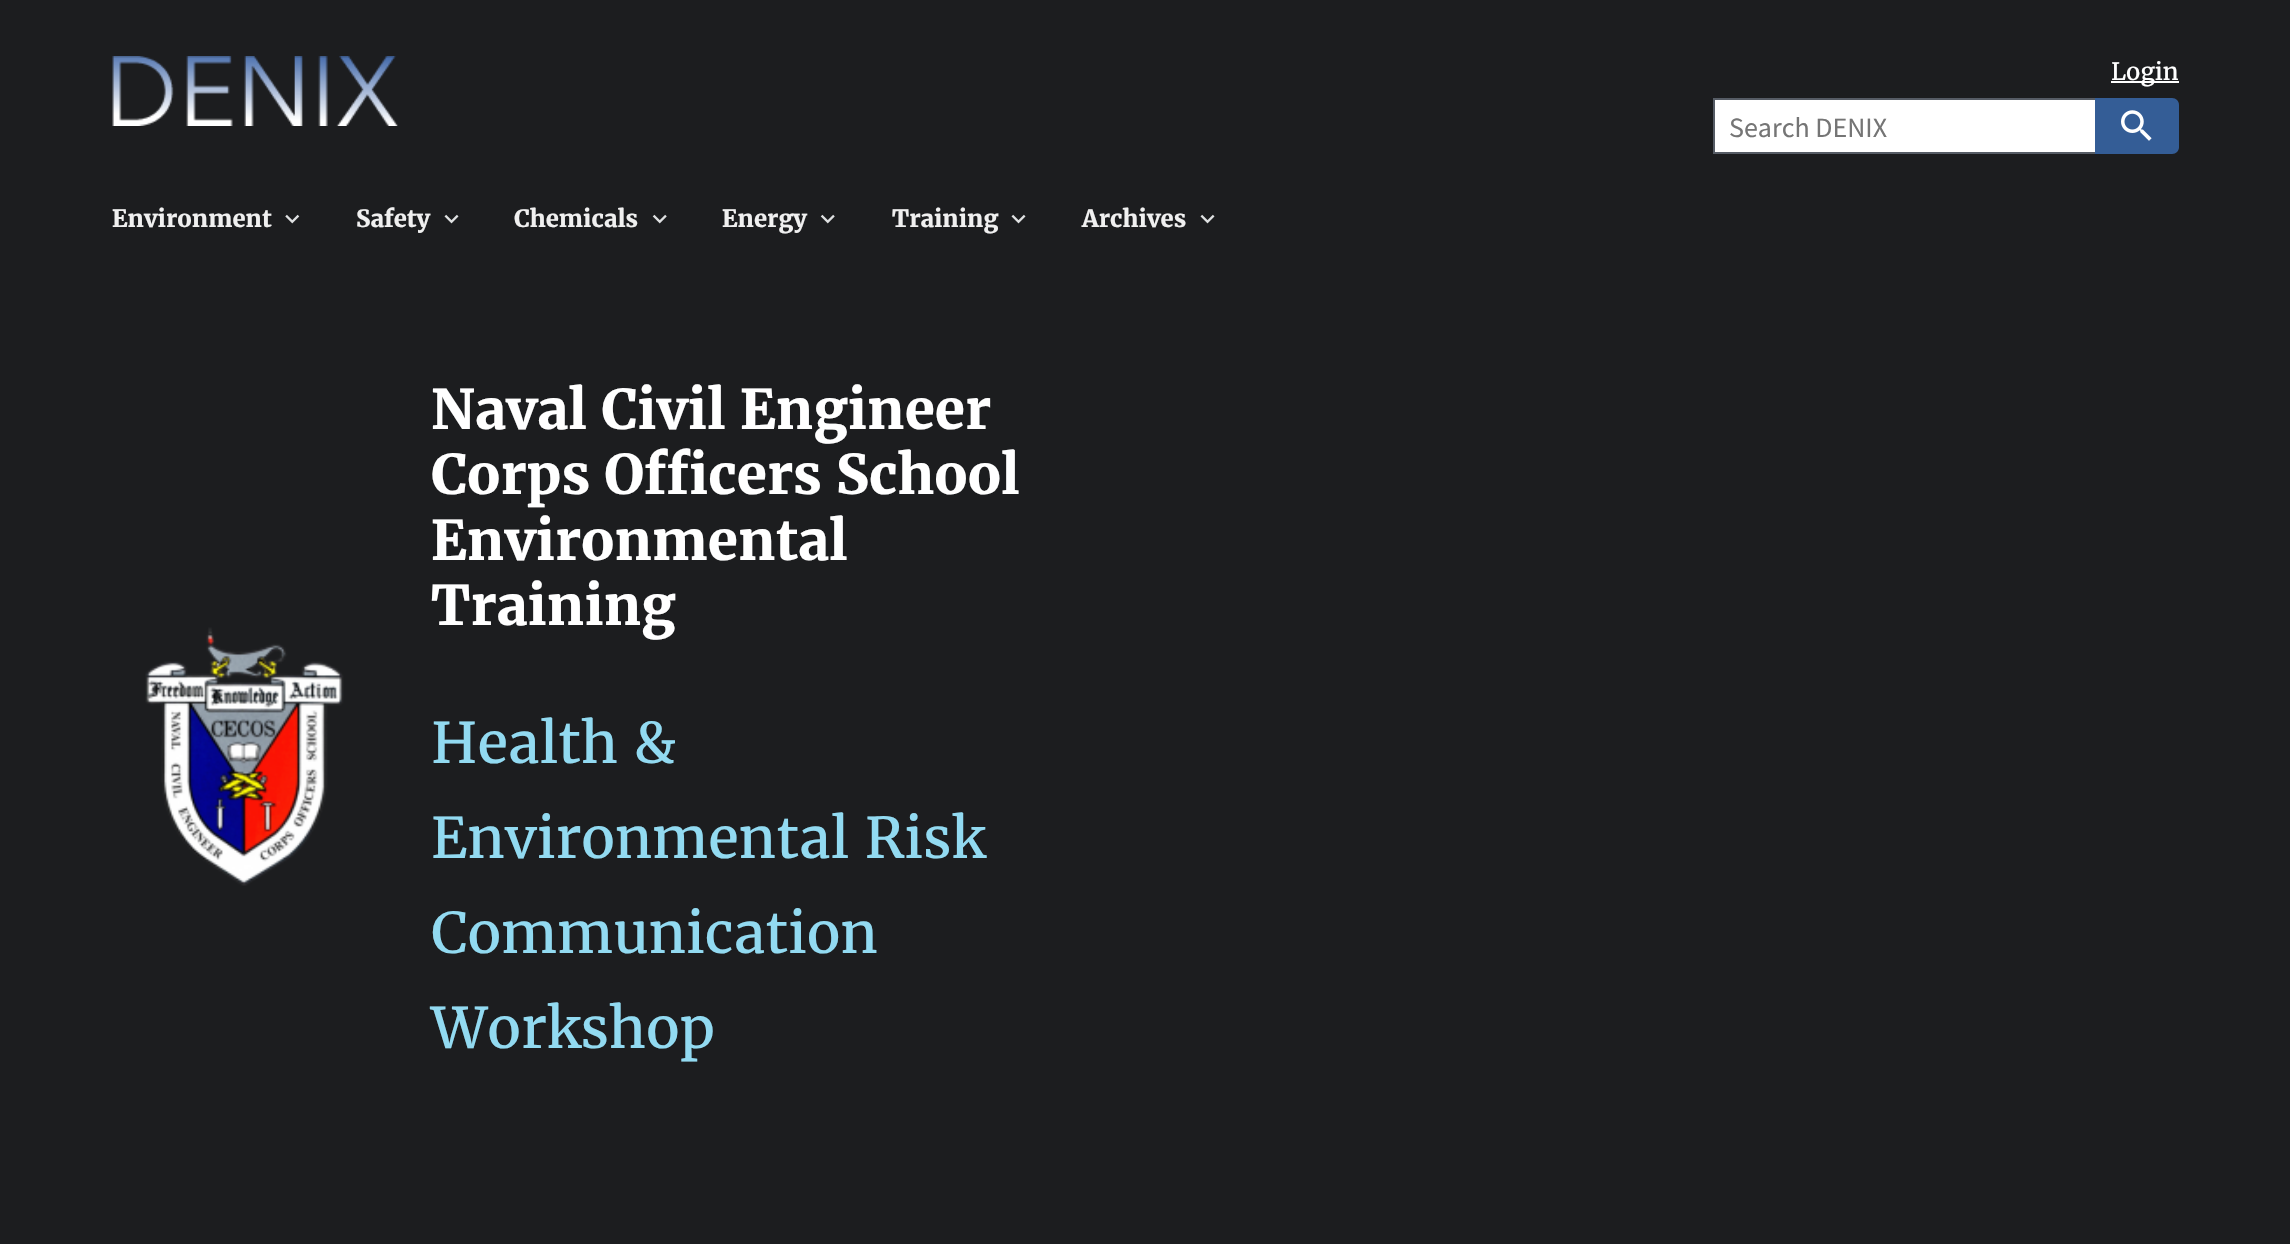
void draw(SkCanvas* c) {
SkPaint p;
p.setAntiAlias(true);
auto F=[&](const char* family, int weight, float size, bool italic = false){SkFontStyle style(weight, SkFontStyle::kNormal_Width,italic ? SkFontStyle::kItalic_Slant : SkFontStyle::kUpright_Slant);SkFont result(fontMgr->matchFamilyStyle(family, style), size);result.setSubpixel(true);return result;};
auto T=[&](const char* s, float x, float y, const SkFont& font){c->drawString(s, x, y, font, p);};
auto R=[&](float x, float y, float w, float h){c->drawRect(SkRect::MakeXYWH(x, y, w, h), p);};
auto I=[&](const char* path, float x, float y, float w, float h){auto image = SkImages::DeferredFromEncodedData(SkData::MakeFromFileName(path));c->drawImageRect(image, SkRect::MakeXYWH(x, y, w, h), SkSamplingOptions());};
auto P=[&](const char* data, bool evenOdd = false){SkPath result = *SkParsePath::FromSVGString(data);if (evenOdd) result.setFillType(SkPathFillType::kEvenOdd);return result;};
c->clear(0xffffffff);
p.setColor(0xff1c1d1f);
R(0,0,2290,1244);
I("1.png",112,56,286,70);
p.setColor(0xffffffff);
R(2111,81,68,2);
auto f1 = F("Merriweather",400,23.75);
T("Login",2111,80,f1);
R(1715,100,380,52);
p.setColor(0xff565c65);
R(1713,98,382,2);
R(1713,152,382,2);
R(1713,98,2,56);
auto f2 = F("Source Sans Pro",400,28);
p.setColor(0xff757575);
T("Search DENIX",1729,137,f2);
p.setColor(0xff345d96);
c->drawPath(P("M2095 98h77c4 0 7 3 7 7v42c0 4-3 7-7 7h-77z"),p);
I("2.png",2121,110,31,31);
auto f3 = F("Merriweather",700,23.75);
p.setColor(0xfff0f0f0);
T("Environment",112,227,f3);
I("3.png",285,214,15,10);
T("Safety",356,227,f3);
I("4.png",444,214,15,10);
T("Chemicals",514,227,f3);
I("5.png",652,214,15,10);
T("Energy",722,227,f3);
I("5.png",820,214,15,10);
T("Training",892,227,f3);
I("4.png",1011,214,15,10);
T("Archives",1082,227,f3);
I("4.png",1200,214,15,10);
I("6.png",145,627,199,259);
auto f4 = F("Merriweather",700,54.6);
p.setColor(0xffffffff);
T("Naval Civil Engineer",431,429,f4);
T("Corps Officers School",431,494,f4);
T("Environmental",431,560,f4);
T("Training",431,625,f4);
auto f5 = F("Merriweather",400,56);
p.setColor(0xff92daf1);
T("Health &",431,763,f5);
T("Environmental Risk",431,858,f5);
T("Communication",431,953,f5);
T("Workshop",431,1048,f5);
}
